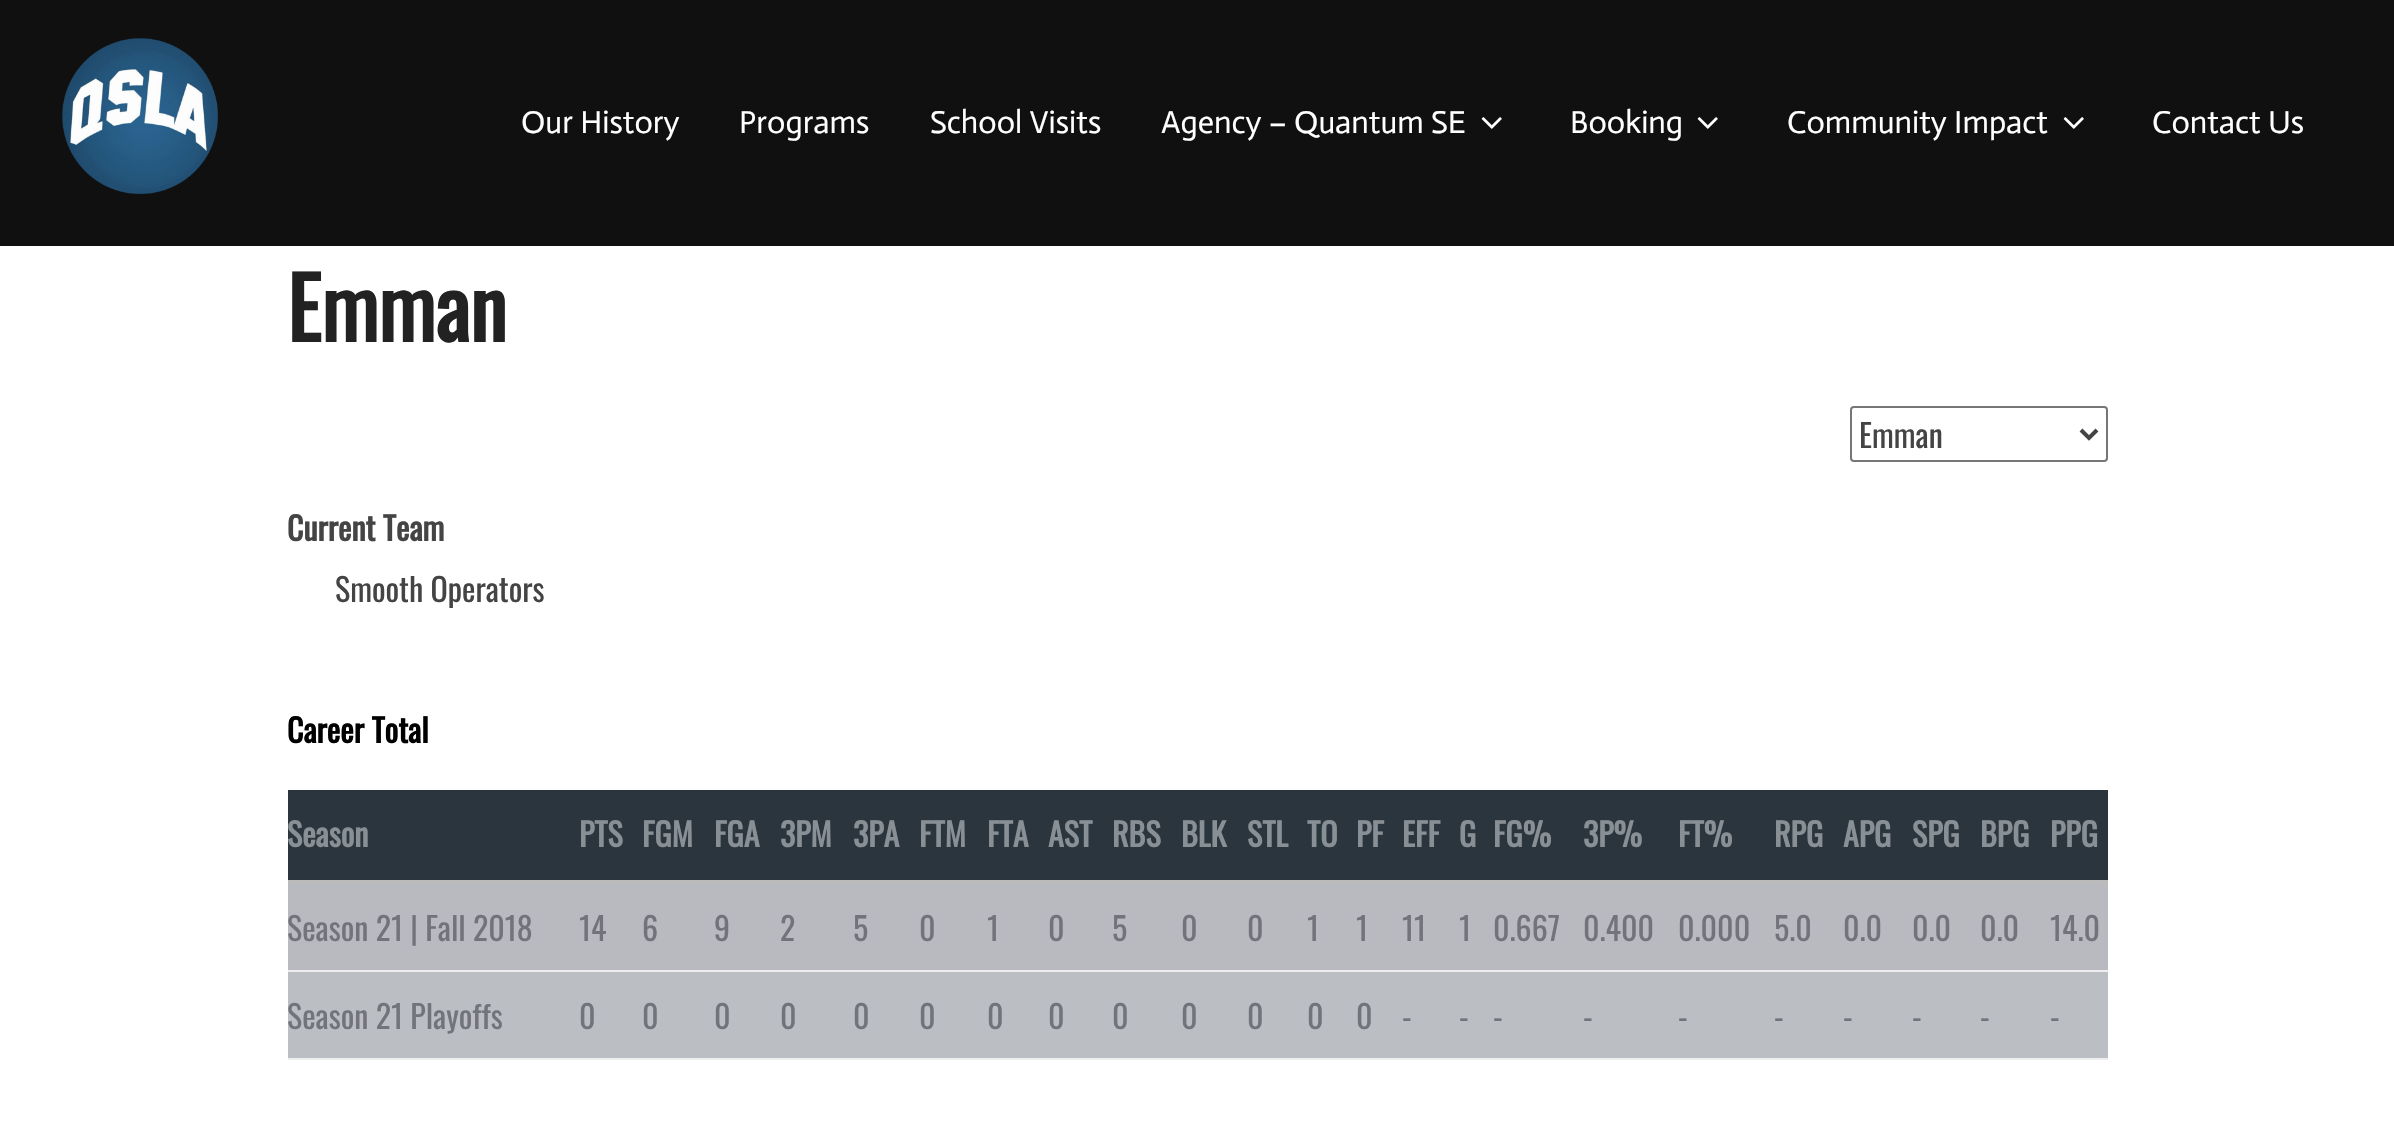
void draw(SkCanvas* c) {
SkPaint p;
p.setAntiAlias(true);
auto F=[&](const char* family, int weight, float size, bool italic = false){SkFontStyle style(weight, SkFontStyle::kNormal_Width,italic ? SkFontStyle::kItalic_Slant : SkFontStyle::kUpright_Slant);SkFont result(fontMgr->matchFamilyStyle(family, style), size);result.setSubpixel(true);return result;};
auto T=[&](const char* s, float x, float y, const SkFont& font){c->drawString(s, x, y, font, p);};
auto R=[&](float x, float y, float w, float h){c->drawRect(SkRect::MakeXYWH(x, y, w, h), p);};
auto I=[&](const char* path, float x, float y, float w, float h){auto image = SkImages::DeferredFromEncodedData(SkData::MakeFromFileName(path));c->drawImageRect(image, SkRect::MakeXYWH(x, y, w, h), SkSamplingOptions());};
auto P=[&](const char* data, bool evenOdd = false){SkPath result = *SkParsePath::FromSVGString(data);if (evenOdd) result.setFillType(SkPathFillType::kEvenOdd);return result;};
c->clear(0xffffffff);
p.setColor(0xff101010);
R(0,0,2394,246);
I("1.png",62,38,156,156);
auto f1 = F("Actor",400,32);
p.setColor(0xffffffff);
T("Our History",521,133,f1);
T("Programs",739,133,f1);
T("School Visits",930,133,f1);
T("Agency – Quantum SE",1161,133,f1);
I("2.png",1481,117,21,12);
T("Booking",1570,133,f1);
I("2.png",1697,117,21,12);
T("Community Impact",1787,133,f1);
I("2.png",2063,117,21,12);
T("Contact Us",2152,133,f1);
auto f2 = F("Oswald",700,84);
p.setColor(0xff222222);
T("Emman",287,342,f2);
p.setStroke(true);
p.setStrokeWidth(2);
p.setColor(0xff767676);
c->drawRoundRect(SkRect::MakeXYWH(1851,407,256,54),3,3,p);
p.setStrokeWidth(4);
p.setColor(0xff444444);
c->drawPath(P("M2081 430l8 8l8-8"),p);
auto f3 = F("Oswald",400,32);
p.setStroke(false);
T("Emman",1859,448,f3);
auto f4 = F("Oswald",700,32);
T("Current Team",287,541,f4);
T("Smooth Operators",335,602,f3);
p.setColor(0xff000000);
T("Career Total",287,743,f4);
p.setColor(0xff2b353e);
R(288,790,1820,90);
p.setColor(0xff889095);
T("Season",287,847,f4);
T("PTS",579,847,f4);
T("FGM",642,847,f4);
T("FGA",714,847,f4);
T("3PM",780,847,f4);
T("3PA",853,847,f4);
T("FTM",919,847,f4);
T("FTA",987,847,f4);
T("AST",1048,847,f4);
T("RBS",1112,847,f4);
T("BLK",1181,847,f4);
T("STL",1247,847,f4);
T("TO",1307,847,f4);
T("PF",1356,847,f4);
T("EFF",1402,847,f4);
T("G",1459,847,f4);
T("FG%",1493,847,f4);
T("3P%",1583,847,f4);
T("FT%",1678,847,f4);
T("RPG",1774,847,f4);
T("APG",1843,847,f4);
T("SPG",1912,847,f4);
T("BPG",1980,847,f4);
p.setColor(0xffbbbbbb);
R(288,880,1820,4);
p.setColor(0xff889095);
T("PPG",2050,847,f4);
p.setColor(0xffbbbec3);
R(288,972,1820,86);
p.setColor(0xffb8bac0);
R(288,884,1820,86);
p.setColor(0xffeeeeee);
R(288,970,1820,2);
p.setColor(0xff73737c);
T("Season 21 | Fall 2018",287,941,f3);
T("14",579,941,f3);
T("6",642,941,f3);
T("9",714,941,f3);
T("2",780,941,f3);
T("5",853,941,f3);
T("0",919,941,f3);
T("1",987,941,f3);
T("0",1048,941,f3);
T("5",1112,941,f3);
T("0",1181,941,f3);
T("0",1247,941,f3);
T("1",1307,941,f3);
T("1",1356,941,f3);
T("11",1402,941,f3);
T("1",1459,941,f3);
T("0.667",1493,941,f3);
T("0.400",1583,941,f3);
T("0.000",1678,941,f3);
T("5.0",1774,941,f3);
T("0.0",1843,941,f3);
T("0.0",1912,941,f3);
T("0.0",1980,941,f3);
T("14.0",2050,941,f3);
p.setColor(0xffeeeeee);
R(288,1058,1820,2);
p.setColor(0xff73737c);
T("Season 21 Playoffs",287,1029,f3);
T("0",579,1029,f3);
T("0",642,1029,f3);
T("0",714,1029,f3);
T("0",780,1029,f3);
T("0",853,1029,f3);
T("0",919,1029,f3);
T("0",987,1029,f3);
T("0",1048,1029,f3);
T("0",1112,1029,f3);
T("0",1181,1029,f3);
T("0",1247,1029,f3);
T("0",1307,1029,f3);
T("0",1356,1029,f3);
T("-",1402,1029,f3);
T("-",1459,1029,f3);
T("-",1493,1029,f3);
T("-",1583,1029,f3);
T("-",1678,1029,f3);
T("-",1774,1029,f3);
T("-",1843,1029,f3);
T("-",1912,1029,f3);
T("-",1980,1029,f3);
T("-",2050,1029,f3);
}
